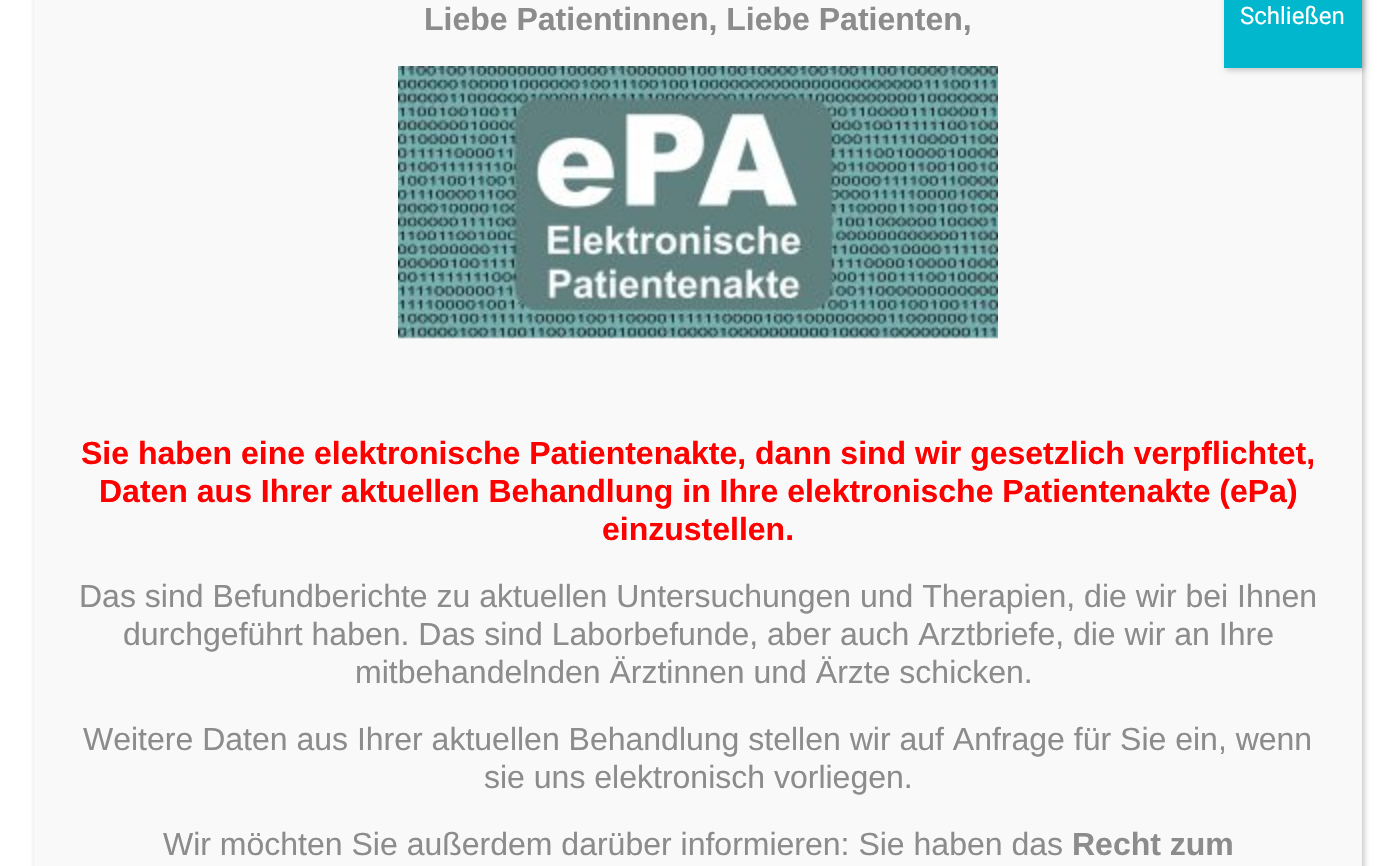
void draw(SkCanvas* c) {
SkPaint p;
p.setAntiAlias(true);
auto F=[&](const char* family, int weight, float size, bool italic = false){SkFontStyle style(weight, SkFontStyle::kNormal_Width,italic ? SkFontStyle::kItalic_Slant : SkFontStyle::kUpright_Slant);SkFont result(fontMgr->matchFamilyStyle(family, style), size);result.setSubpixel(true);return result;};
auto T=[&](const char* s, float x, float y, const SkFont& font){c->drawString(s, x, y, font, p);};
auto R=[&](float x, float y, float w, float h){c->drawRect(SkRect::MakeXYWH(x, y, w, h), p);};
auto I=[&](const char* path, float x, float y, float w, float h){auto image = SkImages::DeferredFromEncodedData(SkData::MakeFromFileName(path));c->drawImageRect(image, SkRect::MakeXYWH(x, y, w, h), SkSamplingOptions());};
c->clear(0xffffffff);
p.setColor(0x3b020202);
p.setMaskFilter(SkMaskFilter::MakeBlur(kNormal_SkBlurStyle, 3));
c->drawRect(SkRect::MakeXYWH(36,-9,1328,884),p);
p.setMaskFilter(nullptr);
p.setColor(0xfff9f9f9);
R(34,0,1328,866);
p.setColor(0x3b020202);
p.setMaskFilter(SkMaskFilter::MakeBlur(kNormal_SkBlurStyle, 3));
c->drawRect(SkRect::MakeXYWH(1226,-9,138,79),p);
p.setMaskFilter(nullptr);
p.setColor(0xff00b7cd);
R(1224,0,138,68);
auto f1 = F("Roboto",400,24);
p.setColor(0xffffffff);
T("Schließen",1240,24,f1);
auto f2 = F("Liberation Sans",700,32);
p.setColor(0xff8c8c8c);
T("Liebe Patientinnen, Liebe Patienten,",424,30,f2);
I("1.png",398,66,600,273);
p.setColor(0xffff0000);
T("Sie haben eine elektronische Patientenakte, dann sind wir gesetzlich verpflichtet,",81,464,f2);
T("Daten aus Ihrer aktuellen Behandlung in Ihre elektronische Patientenakte (ePa)",99,502,f2);
T("einzustellen.",602,540,f2);
auto f3 = F("Liberation Sans",400,32);
p.setColor(0xff8c8c8c);
T("Das sind Befundberichte zu aktuellen Untersuchungen und Therapien, die wir bei Ihnen",79,607,f3);
T("durchgeführt haben. Das sind Laborbefunde, aber auch Arztbriefe, die wir an Ihre",123,645,f3);
T("mitbehandelnden Ärztinnen und Ärzte schicken.",355,683,f3);
T("Weitere Daten aus Ihrer aktuellen Behandlung stellen wir auf Anfrage für Sie ein, wenn",83,750,f3);
T("sie uns elektronisch vorliegen.",484,788,f3);
T("Wir möchten Sie außerdem darüber informieren: Sie haben das",163,855,f3);
T("Recht zum",1072,855,f2);
}
